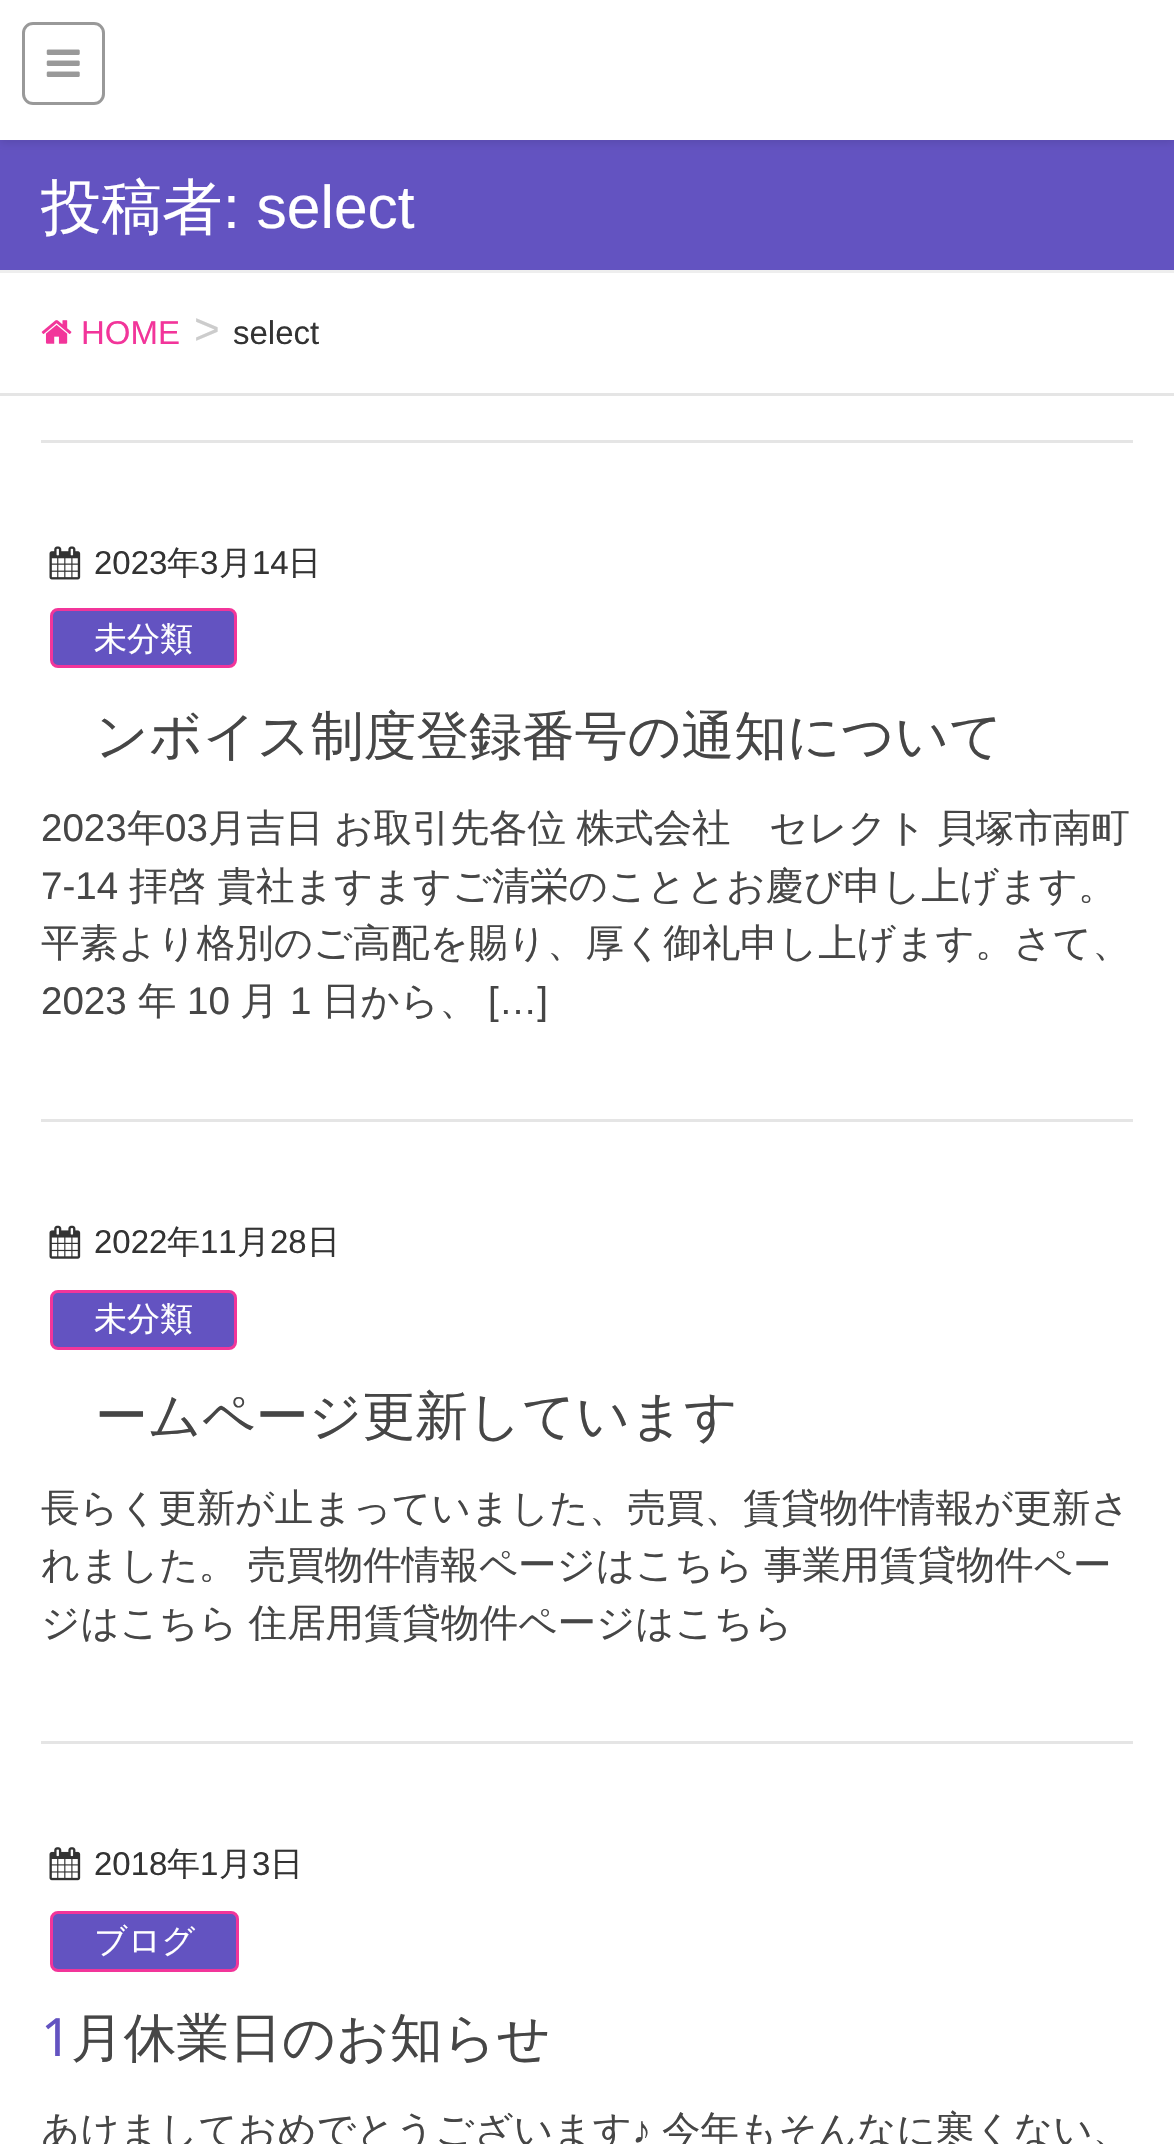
void draw(SkCanvas* c) {
SkPaint p;
p.setAntiAlias(true);
auto F=[&](const char* family, int weight, float size, bool italic = false){SkFontStyle style(weight, SkFontStyle::kNormal_Width,italic ? SkFontStyle::kItalic_Slant : SkFontStyle::kUpright_Slant);SkFont result(fontMgr->matchFamilyStyle(family, style), size);result.setSubpixel(true);return result;};
auto T=[&](const char* s, float x, float y, const SkFont& font){c->drawString(s, x, y, font, p);};
auto L=[&](const char* s, float x, float y, const SkFont& font, const SkPaint& ink, float letter, float word){std::vector<SkGlyphID> glyphs(font.countText(s, strlen(s), SkTextEncoding::kUTF8));std::vector<float> xs(glyphs.size());font.textToGlyphs(s, strlen(s), SkTextEncoding::kUTF8, glyphs);font.getXPos(glyphs, xs, x);float extra = 0;for (size_t i = 0; i < glyphs.size(); i++) {xs[i] += extra;extra += letter + word * (glyphs[i] == font.unicharToGlyph(' '));}c->drawTextBlob(SkTextBlob::MakeFromPosHGlyphs(glyphs, xs, y, font), 0, 0, ink);};
auto R=[&](float x, float y, float w, float h){c->drawRect(SkRect::MakeXYWH(x, y, w, h), p);};
auto I=[&](const char* path, float x, float y, float w, float h){auto image = SkImages::DeferredFromEncodedData(SkData::MakeFromFileName(path));c->drawImageRect(image, SkRect::MakeXYWH(x, y, w, h), SkSamplingOptions());};
c->clear(0xffffffff);
p.setColor(0xff6353c1);
R(0,140,1174,130);
p.setColor(0x1a000000);
p.setMaskFilter(SkMaskFilter::MakeBlur(kNormal_SkBlurStyle, 4));
c->drawRect(SkRect::MakeXYWH(0,3,1174,140),p);
p.setMaskFilter(nullptr);
p.setColor(0xffffffff);
R(0,0,1174,140);
p.setStroke(true);
p.setStrokeWidth(3);
p.setColor(0xff999999);
c->drawRoundRect(SkRect::MakeXYWH(23.5,23.5,80,80),9.5,9.5,p);
I("1.png",46,49,34,28);
p.setStroke(false);
p.setColor(0xffeeeeee);
R(0,270,1174,3);
auto f1 = F("WenQuanYi Zen Hei",500,60.5);
p.setColor(0xffffffff);
T("投稿者",41,228,f1);
auto f2 = F("Liberation Sans",400,60.5);
T(": select",223,228,f2);
p.setColor(0xffe5e5e5);
R(0,393,1174,3);
I("2.png",41,320,31,24);
auto f3 = F("Liberation Sans",400,33);
p.setColor(0xfff2359a);
T("HOME",81,344,f3);
auto f4 = F("Liberation Sans",400,44);
p.setColor(0xffcccccc);
T(">",194,344,f4);
p.setColor(0xff333333);
T("select",233,344,f3);
p.setColor(0xffe5e5e5);
R(41,440,1092,3);
R(41,1119,1092,3);
I("3.png",49,546,32,34);
p.setColor(0xff333333);
T("2023",94,574,f3);
auto f5 = F("WenQuanYi Zen Hei",500,33);
T("年",167,574,f5);
T("3",200,574,f3);
T("月",219,574,f5);
T("14",252,574,f3);
T("日",288,574,f5);
p.setColor(0xff6353c1);
c->drawRoundRect(SkRect::MakeXYWH(51.5,609.5,184,57),6.5,6.5,p);
p.setStroke(true);
p.setColor(0xfff2359a);
c->drawRoundRect(SkRect::MakeXYWH(51.5,609.5,184,57),6.5,6.5,p);
p.setStroke(false);
p.setColor(0xffffffff);
T("未分類",94,650,f5);
auto f6 = F("Noto Sans",400,52.75);
p.setColor(0xff6353c1);
T("イ",41,754,f6);
auto f7 = F("WenQuanYi Zen Hei",500,52.75);
p.setColor(0xff464646);
T("ンボイス制度登録番号の通知について",95,754,f7);
auto f8 = F("Liberation Sans",400,38.5);
T("2023",41,841,f8);
auto f9 = F("WenQuanYi Zen Hei",500,38.5);
T("年",127,841,f9);
T("03",165,841,f8);
L("月吉日 お取引先各位 株式会社　セレクト 貝塚市南町",208,841,f9,p,0,-1);
T("7-14",41,899,f8);
T("拝啓 貴社ますますご清栄のこととお慶び申し上げます。",129,899,f9);
T("平素より格別のご高配を賜り、厚く御礼申し上げます。さて、",41,956,f9);
T("2023",41,1014,f8);
T("年",138,1014,f9);
T("10",187,1014,f8);
T("月",240,1014,f9);
T("1",290,1014,f8);
T("日から、",322,1014,f9);
T("[…]",488,1014,f8);
p.setColor(0xffe5e5e5);
R(41,1741,1092,3);
I("4.png",49,1225,32,34);
p.setColor(0xff333333);
T("2022",94,1253,f3);
T("年",167,1253,f5);
T("11",200,1253,f3);
T("月",237,1253,f5);
T("28",270,1253,f3);
T("日",307,1253,f5);
p.setColor(0xff6353c1);
c->drawRoundRect(SkRect::MakeXYWH(51.5,1291.5,184,57),6.5,6.5,p);
p.setStroke(true);
p.setColor(0xfff2359a);
c->drawRoundRect(SkRect::MakeXYWH(51.5,1291.5,184,57),6.5,6.5,p);
p.setStroke(false);
p.setColor(0xffffffff);
T("未分類",94,1330,f5);
p.setColor(0xff6353c1);
T("ホ",41,1434,f6);
p.setColor(0xff464646);
T("ームページ更新しています",95,1434,f7);
T("長らく更新が止まっていました、売買、賃貸物件情報が更新さ",41,1521,f9);
L("れました。 売買物件情報ページはこちら 事業用賃貸物件ペー",41,1578,f9,p,0,-1);
L("ジはこちら 住居用賃貸物件ページはこちら",41,1636,f9,p,0,-1);
I("5.png",49,1847,32,34);
p.setColor(0xff333333);
T("2018",94,1875,f3);
T("年",167,1875,f5);
T("1",200,1875,f3);
T("月",219,1875,f5);
T("3",252,1875,f3);
T("日",270,1875,f5);
p.setColor(0xff6353c1);
c->drawRoundRect(SkRect::MakeXYWH(51.5,1912.5,186,58),6.5,6.5,p);
p.setStroke(true);
p.setColor(0xfff2359a);
c->drawRoundRect(SkRect::MakeXYWH(51.5,1912.5,186,58),6.5,6.5,p);
p.setStroke(false);
p.setColor(0xffffffff);
T("ブログ",94,1952,f5);
p.setColor(0xff6353c1);
T("1",41,2056,f6);
p.setColor(0xff464646);
T("月休業日のお知らせ",71,2056,f7);
T("あけましておめでとうございます",41,2143,f9);
T("♪",632,2143,f8);
T("今年もそんなに寒くない、",662,2143,f9);
}
